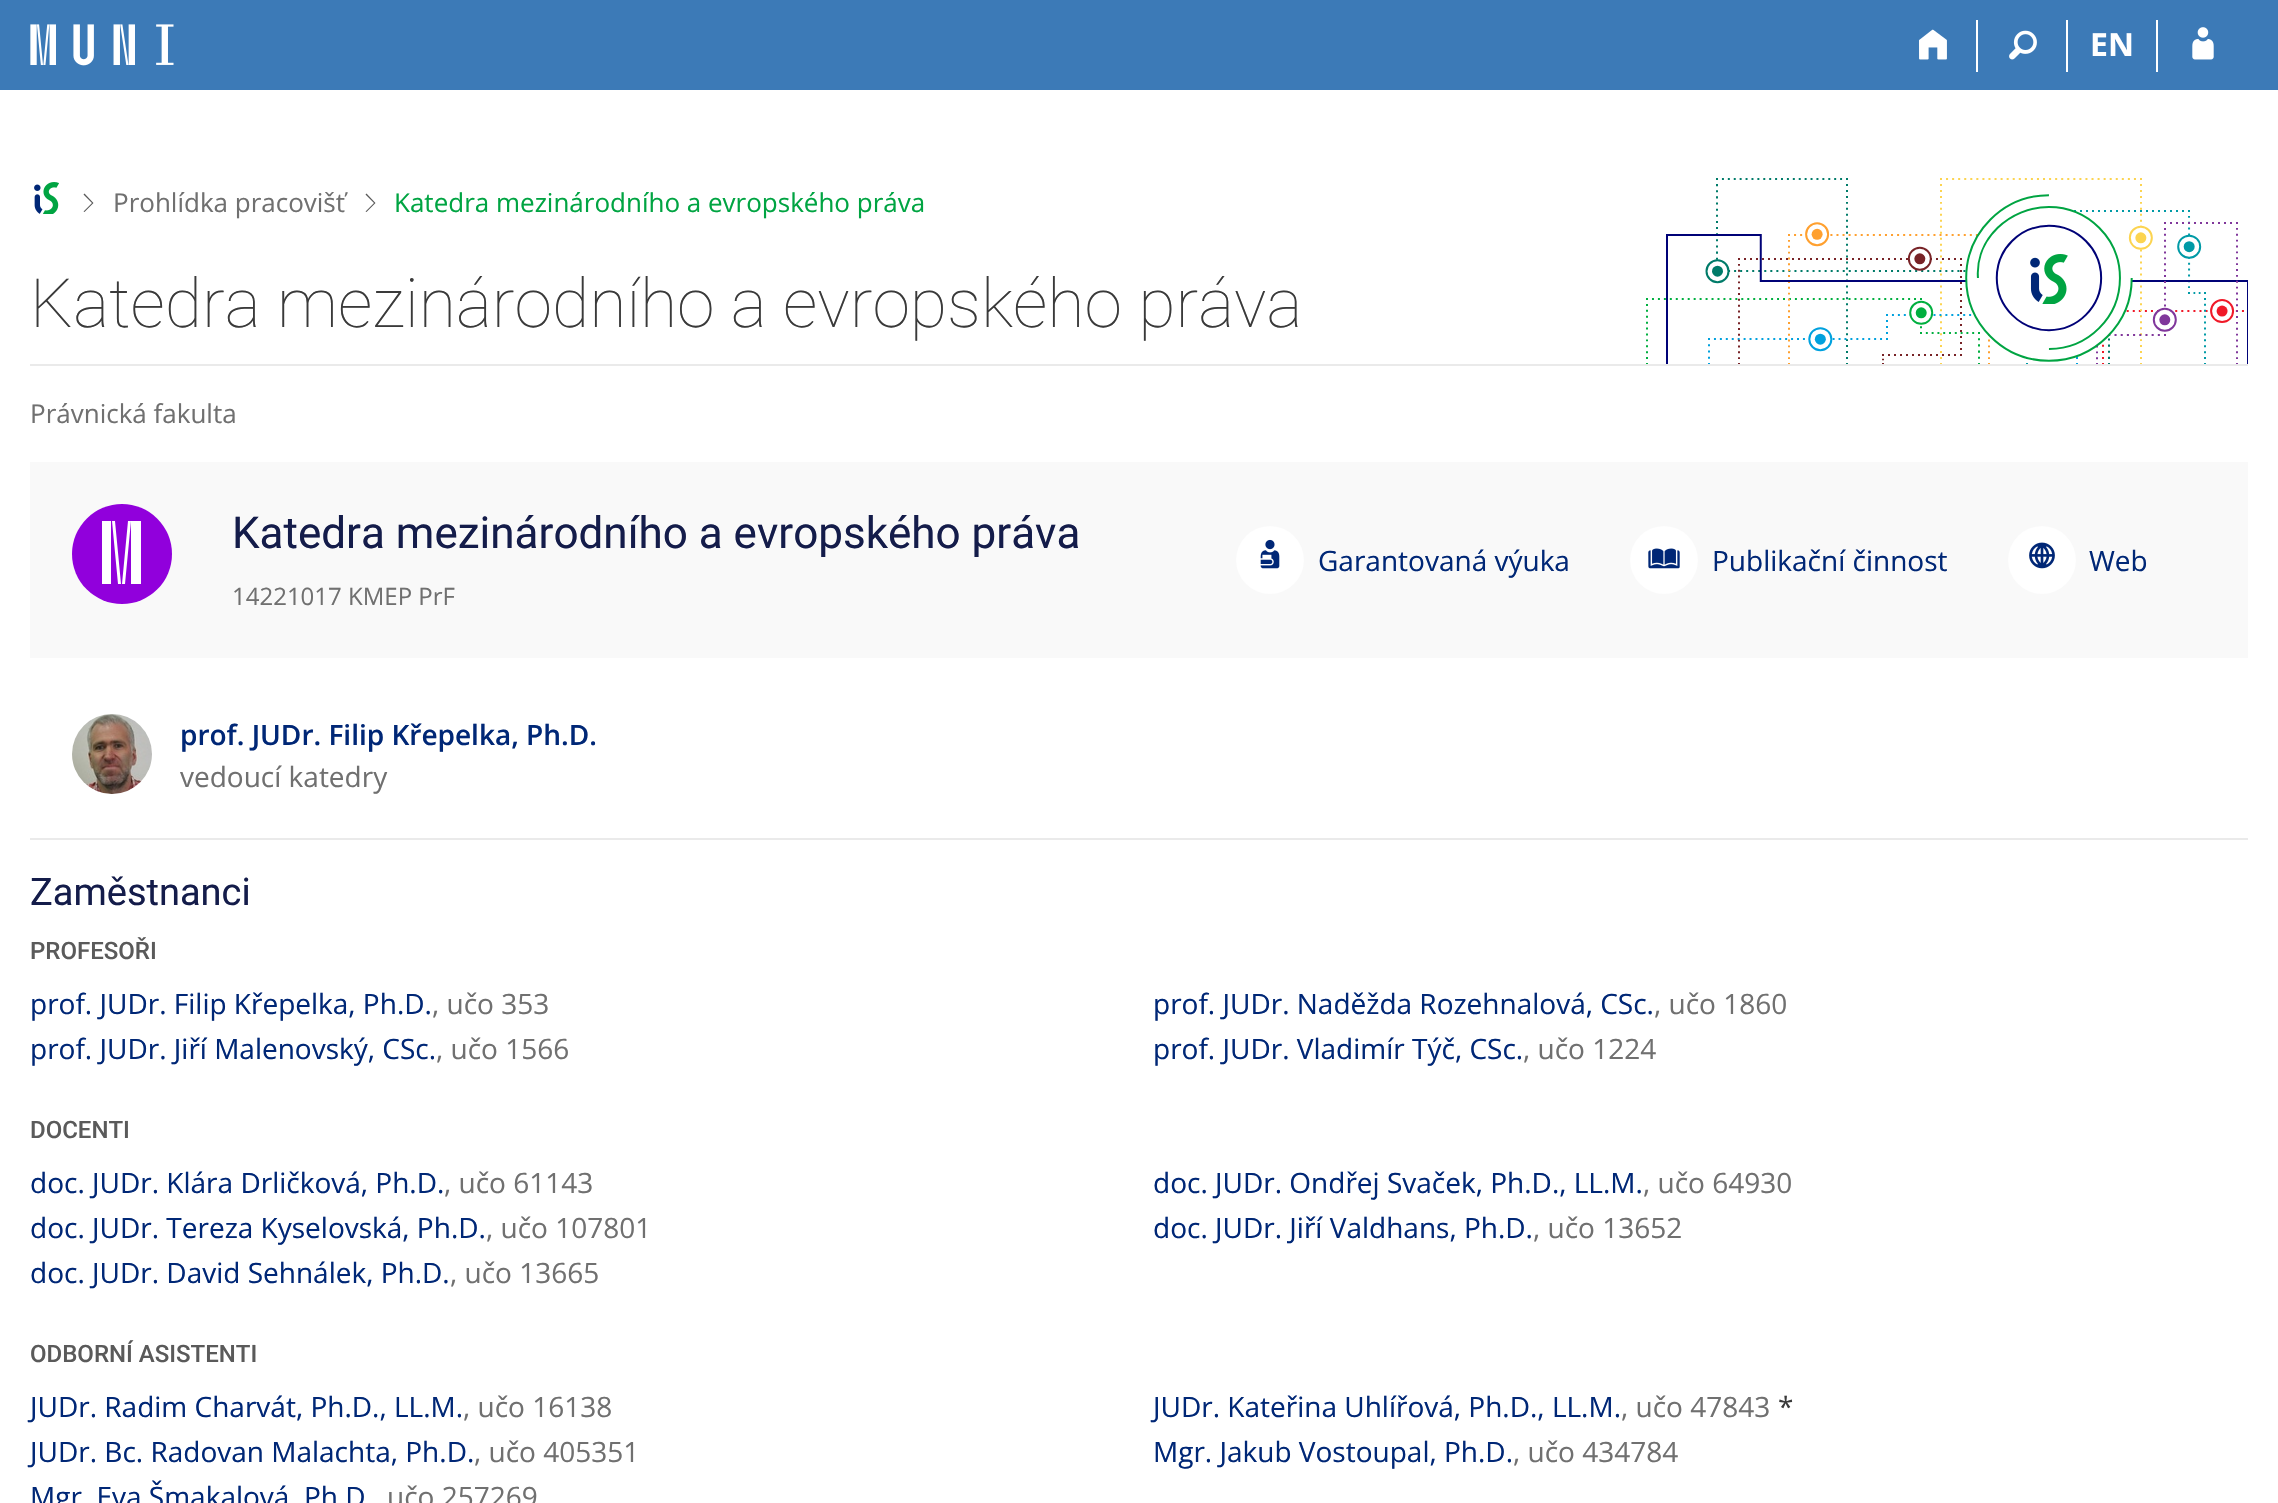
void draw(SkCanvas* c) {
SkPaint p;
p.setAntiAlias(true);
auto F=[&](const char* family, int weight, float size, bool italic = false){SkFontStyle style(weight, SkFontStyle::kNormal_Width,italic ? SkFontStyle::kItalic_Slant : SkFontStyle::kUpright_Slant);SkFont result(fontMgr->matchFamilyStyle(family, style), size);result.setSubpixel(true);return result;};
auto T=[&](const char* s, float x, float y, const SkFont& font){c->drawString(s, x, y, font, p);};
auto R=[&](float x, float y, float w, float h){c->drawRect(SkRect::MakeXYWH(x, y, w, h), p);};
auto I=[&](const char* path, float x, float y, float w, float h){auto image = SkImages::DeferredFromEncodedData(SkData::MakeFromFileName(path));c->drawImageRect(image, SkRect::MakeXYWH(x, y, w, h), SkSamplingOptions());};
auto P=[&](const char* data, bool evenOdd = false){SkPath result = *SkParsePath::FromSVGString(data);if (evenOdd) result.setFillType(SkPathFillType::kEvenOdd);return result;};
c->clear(0xffffffff);
p.setColor(0xff3c7ab7);
R(0,0,2278,90);
I("1.png",30,24,144,42);
p.setColor(0xffffffff);
R(1976,20,2,52);
I("2.png",1919,29,28,31);
R(2066,20,2,52);
I("3.png",2009,30,28,30);
R(2156,20,2,52);
auto f1 = F("Open Sans",700,32);
T("EN",2090,56,f1);
I("4.png",2192,27,22,33);
I("5.png",34,182,25,32);
p.setColor(0xff5a5a5a);
c->drawPath(P("M84.5 212l-1-.5l8.5-8.5l-8.5-8.5l1-1l9 9.5z"),p);
auto f2 = F("Open Sans",400,26);
p.setColor(0xff707070);
T("Prohlídka pracovišť",113,212,f2);
p.setColor(0xff5a5a5a);
c->drawPath(P("M366.5 212l-1-.5l8.5-8.5l-8.5-8.5l1-1l9 9.5z"),p);
p.setColor(0xff00a442);
T("Katedra mezinárodního a evropského práva",394,212,f2);
auto f3 = F("Roboto",100,68);
p.setColor(0xff3a3a3a);
T("Katedra mezinárodního a evropského práva",30,327,f3);
I("6.png",1646,178,602,186);
I("7.png",2030,254,38,50);
p.setColor(0xffeaeaea);
R(30,364,2218,2);
p.setColor(0xff707070);
T("Právnická fakulta",30,423,f2);
p.setColor(0xfff9f9f9);
R(30,462,2218,196);
p.setColor(0xff9100dc);
c->drawCircle(122,554,50,p);
p.setColor(0xffffffff);
c->drawPath(P("M102 521h9v63h-9zm10 0h3l6 63h-3zm16 0h3l-6 63h-3zm3 0h10v63h-10z"),p);
auto f4 = F("Roboto",400,44);
p.setColor(0xff141c4a);
T("Katedra mezinárodního a evropského práva",232,548,f4);
auto f5 = F("Open Sans",400,24);
p.setColor(0xff707070);
T("14221017 KMEP PrF",232,605,f5);
p.setColor(0xffffffff);
c->drawCircle(1270,560,34,p);
I("8.png",1260,539,20,30);
auto f6 = F("Open Sans",400,28);
p.setColor(0xff002776);
T("Garantovaná výuka",1318,571,f6);
p.setColor(0xffffffff);
c->drawCircle(1664,560,34,p);
I("9.png",1648,548,32,21);
p.setColor(0xff002776);
T("Publikační činnost",1712,571,f6);
p.setColor(0xffffffff);
c->drawCircle(2042,560,34,p);
I("10.png",2029,542,26,27);
p.setColor(0xff002776);
T("Web",2089,571,f6);
I("11.png",72,714,80,80);
auto f7 = F("Open Sans",600,28);
T("prof. JUDr. Filip Křepelka, Ph.D.",180,745,f7);
p.setColor(0xff707070);
T("vedoucí katedry",180,787,f6);
p.setColor(0xffeaeaea);
R(30,838,2218,2);
auto f8 = F("Roboto",400,38);
p.setColor(0xff141c4a);
T("Zaměstnanci",30,905,f8);
auto f9 = F("Roboto",500,24);
p.setColor(0xff5a5a5a);
T("PROFESOŘI",30,959,f9);
p.setColor(0xff002776);
T("prof. JUDr. Filip Křepelka, Ph.D.",30,1014,f6);
p.setColor(0xff707070);
T(", učo 353",432,1014,f6);
p.setColor(0xff002776);
T("prof. JUDr. Naděžda Rozehnalová, CSc.",1153,1014,f6);
p.setColor(0xff707070);
T(", učo 1860",1654,1014,f6);
p.setColor(0xff002776);
T("prof. JUDr. Jiří Malenovský, CSc.",30,1059,f6);
p.setColor(0xff707070);
T(", učo 1566",436,1059,f6);
p.setColor(0xff002776);
T("prof. JUDr. Vladimír Týč, CSc.",1153,1059,f6);
p.setColor(0xff707070);
T(", učo 1224",1523,1059,f6);
p.setColor(0xff5a5a5a);
T("DOCENTI",30,1138,f9);
p.setColor(0xff002776);
T("doc. JUDr. Klára Drličková, Ph.D.",30,1193,f6);
p.setColor(0xff707070);
T(", učo 61143",444,1193,f6);
p.setColor(0xff002776);
T("doc. JUDr. Ondřej Svaček, Ph.D., LL.M.",1153,1193,f6);
p.setColor(0xff707070);
T(", učo 64930",1643,1193,f6);
p.setColor(0xff002776);
T("doc. JUDr. Tereza Kyselovská, Ph.D.",30,1238,f6);
p.setColor(0xff707070);
T(", učo 107801",486,1238,f6);
p.setColor(0xff002776);
T("doc. JUDr. Jiří Valdhans, Ph.D.",1153,1238,f6);
p.setColor(0xff707070);
T(", učo 13652",1533,1238,f6);
p.setColor(0xff002776);
T("doc. JUDr. David Sehnálek, Ph.D.",30,1283,f6);
p.setColor(0xff707070);
T(", učo 13665",450,1283,f6);
p.setColor(0xff5a5a5a);
T("ODBORNÍ ASISTENTI",30,1362,f9);
p.setColor(0xff002776);
T("JUDr. Radim Charvát, Ph.D., LL.M.",30,1417,f6);
p.setColor(0xff707070);
T(", učo 16138",463,1417,f6);
p.setColor(0xff002776);
T("JUDr. Kateřina Uhlířová, Ph.D., LL.M.",1153,1417,f6);
p.setColor(0xff707070);
T(", učo 47843",1621,1417,f6);
p.setColor(0xff3a3a3a);
T("*",1778,1417,f6);
p.setColor(0xff002776);
T("JUDr. Bc. Radovan Malachta, Ph.D.",30,1462,f6);
p.setColor(0xff707070);
T(", učo 405351",474,1462,f6);
p.setColor(0xff002776);
T("Mgr. Jakub Vostoupal, Ph.D.",1153,1462,f6);
p.setColor(0xff707070);
T(", učo 434784",1513,1462,f6);
p.setColor(0xff002776);
T("Mgr. Eva Šmakalová, Ph.D",30,1507,f6);
p.setColor(0xff707070);
T("učo 257269",387,1507,f6);
}
